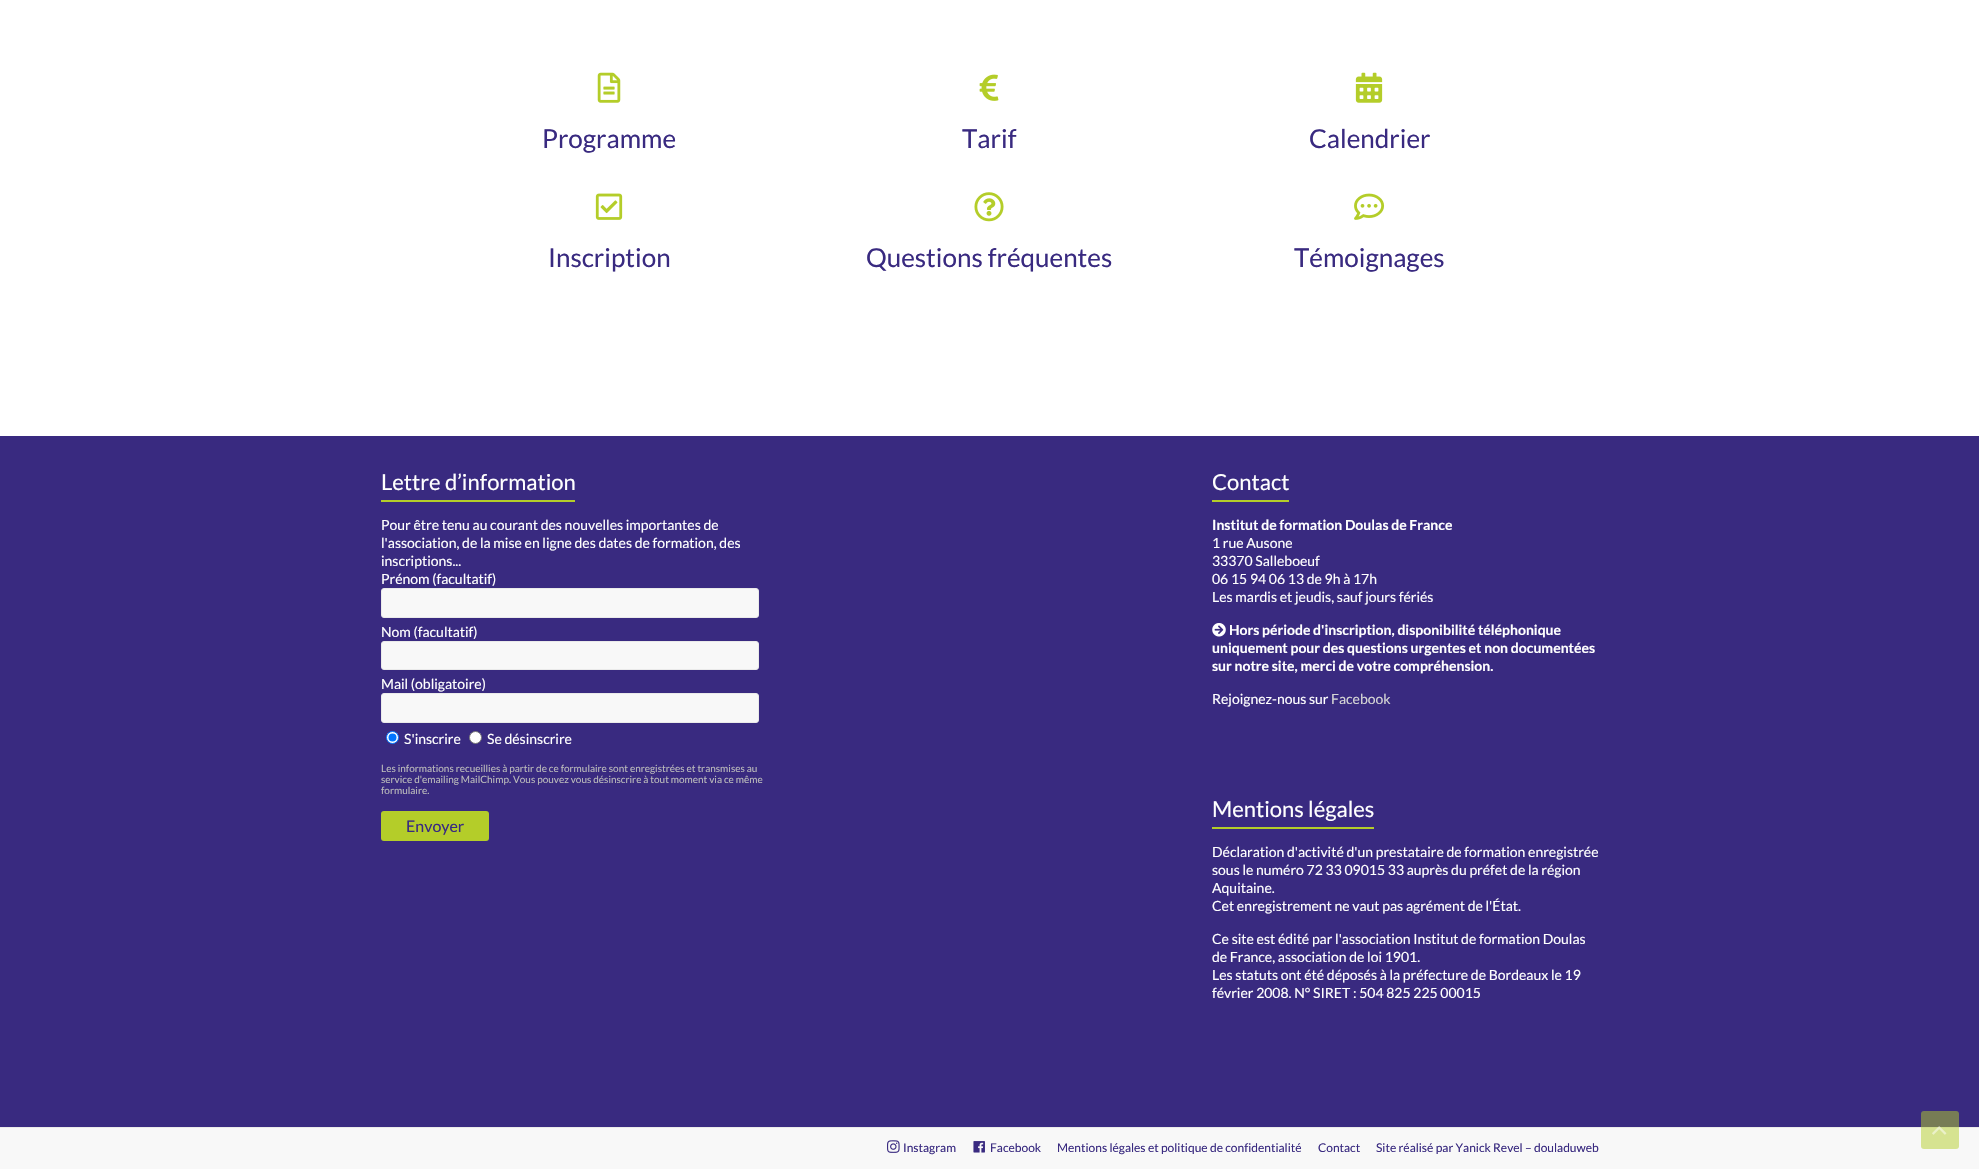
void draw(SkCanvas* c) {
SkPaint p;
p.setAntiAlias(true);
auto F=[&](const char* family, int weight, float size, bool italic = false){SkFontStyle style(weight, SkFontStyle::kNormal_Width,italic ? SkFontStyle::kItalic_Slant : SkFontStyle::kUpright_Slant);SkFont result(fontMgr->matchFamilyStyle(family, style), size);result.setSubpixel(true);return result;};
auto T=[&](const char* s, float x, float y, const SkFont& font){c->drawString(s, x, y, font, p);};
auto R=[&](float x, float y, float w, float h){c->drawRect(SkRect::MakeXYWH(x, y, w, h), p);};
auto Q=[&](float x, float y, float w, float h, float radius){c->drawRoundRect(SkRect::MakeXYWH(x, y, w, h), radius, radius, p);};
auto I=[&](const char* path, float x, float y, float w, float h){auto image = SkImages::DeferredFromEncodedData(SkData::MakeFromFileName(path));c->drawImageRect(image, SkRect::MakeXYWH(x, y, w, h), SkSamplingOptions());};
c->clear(0xffffffff);
I("1.png",597,72,24,31);
auto f1 = F("Lato",400,26);
p.setColor(0xff392a80);
T("Programme",542,148,f1);
I("2.png",595,193,28,27);
T("Inscription",548,267,f1);
I("3.png",979,74,20,27);
T("Tarif",962,148,f1);
I("4.png",974,192,30,30);
T("Questions fréquentes",866,267,f1);
I("5.png",1355,72,28,31);
T("Calendrier",1309,148,f1);
I("6.png",1354,193,31,27);
T("Témoignages",1294,267,f1);
R(0,436,1979,691);
auto f2 = F("Lato",400,22);
p.setColor(0xffffffff);
T("Lettre d’information",381,490,f2);
p.setColor(0xffb4cd29);
R(381,500,194,2);
auto f3 = F("Lato",400,14);
p.setColor(0xffffffff);
T("Pour être tenu au courant des nouvelles importantes de",381,530,f3);
T("l'association, de la mise en ligne des dates de formation, des",381,548,f3);
T("inscriptions...",381,566,f3);
T("Prénom (facultatif)",381,584,f3);
p.setColor(0xfff8f8f8);
c->drawRoundRect(SkRect::MakeXYWH(381.5,588.5,377,29),2.5,2.5,p);
p.setStroke(true);
p.setStrokeWidth(1);
p.setColor(0xffeaeaea);
c->drawRoundRect(SkRect::MakeXYWH(381.5,588.5,377,29),2.5,2.5,p);
p.setStroke(false);
p.setColor(0xffffffff);
T("Nom (facultatif)",381,637,f3);
p.setColor(0xfff8f8f8);
c->drawRoundRect(SkRect::MakeXYWH(381.5,641.5,377,28),2.5,2.5,p);
p.setStroke(true);
p.setColor(0xffeaeaea);
c->drawRoundRect(SkRect::MakeXYWH(381.5,641.5,377,28),2.5,2.5,p);
p.setStroke(false);
p.setColor(0xffffffff);
T("Mail (obligatoire)",381,689,f3);
p.setColor(0xfff8f8f8);
c->drawRoundRect(SkRect::MakeXYWH(381.5,693.5,377,29),2.5,2.5,p);
p.setStroke(true);
p.setColor(0xffeaeaea);
c->drawRoundRect(SkRect::MakeXYWH(381.5,693.5,377,29),2.5,2.5,p);
p.setStroke(false);
p.setColor(0xffffffff);
c->drawCircle(392.5,737.5,6,p);
p.setStroke(true);
p.setColor(0xff0075ff);
c->drawCircle(392.5,737.5,6,p);
p.setStroke(false);
c->drawCircle(392.5,737.5,4,p);
p.setColor(0xffffffff);
T("S'inscrire",404,744,f3);
c->drawCircle(475.5,737.5,6,p);
p.setStroke(true);
p.setColor(0xff767676);
c->drawCircle(475.5,737.5,6,p);
p.setStroke(false);
p.setColor(0xffffffff);
T("Se désinscrire",487,744,f3);
auto f4 = F("Lato",400,10);
p.setColor(0xffbbbbbb);
T("Les informations recueillies à partir de ce formulaire sont enregistrées et transmises au",381,772,f4);
T("service d'emailing MailChimp. Vous pouvez vous désinscrire à tout moment via ce même",381,783,f4);
T("formulaire.",381,794,f4);
p.setColor(0xffb4cd29);
Q(381,811,108,30,3);
auto f5 = F("Lato",400,16);
p.setColor(0xff392a80);
T("Envoyer",406,832,f5);
p.setColor(0xffffffff);
T("Contact",1212,490,f2);
p.setColor(0xffb4cd29);
R(1212,500,77,2);
auto f6 = F("Lato",700,14);
p.setColor(0xffffffff);
T("Institut de formation Doulas de France",1212,530,f6);
T("1 rue Ausone",1212,548,f3);
T("33370 Salleboeuf",1212,566,f3);
T("06 15 94 06 13 de 9h à 17h",1212,584,f3);
T("Les mardis et jeudis, sauf jours fériés",1212,602,f3);
I("7.png",1212,623,14,14);
T("Hors période d'inscription, disponibilité téléphonique",1229,635,f6);
T("uniquement pour des questions urgentes et non documentées",1212,653,f6);
T("sur notre site, merci de votre compréhension.",1212,671,f6);
T("Rejoignez-nous sur",1212,704,f3);
p.setColor(0xffd5d5d5);
T("Facebook",1331,704,f3);
p.setColor(0xffffffff);
T("Mentions légales",1212,817,f2);
p.setColor(0xffb4cd29);
R(1212,827,162,2);
p.setColor(0xffffffff);
T("Déclaration d'activité d'un prestataire de formation enregistrée",1212,857,f3);
T("sous le numéro 72 33 09015 33 auprès du préfet de la région",1212,875,f3);
T("Aquitaine.",1212,893,f3);
T("Cet enregistrement ne vaut pas agrément de l'État.",1212,911,f3);
T("Ce site est édité par l'association Institut de formation Doulas",1212,944,f3);
T("de France, association de loi 1901.",1212,962,f3);
T("Les statuts ont été déposés à la préfecture de Bordeaux le 19",1212,980,f3);
T("février 2008. N° SIRET : 504 825 225 00015",1212,998,f3);
p.setColor(0xfff8f8f8);
R(0,1128,1979,41);
p.setColor(0xffeaeaea);
R(0,1127,1979,1);
I("8.png",887,1140,13,13);
auto f7 = F("Lato",400,12);
p.setColor(0xff392a80);
T("Instagram",903,1152,f7);
I("9.png",973,1141,12,12);
T("Facebook",990,1152,f7);
T("Mentions légales et politique de confidentialité",1057,1152,f7);
T("Contact",1318,1152,f7);
T("Site réalisé par Yanick Revel – douladuweb",1376,1152,f7);
p.setColor(0x80b4cd29);
Q(1921,1111,38,38,3);
I("10.png",1932,1126,15,9);
}
